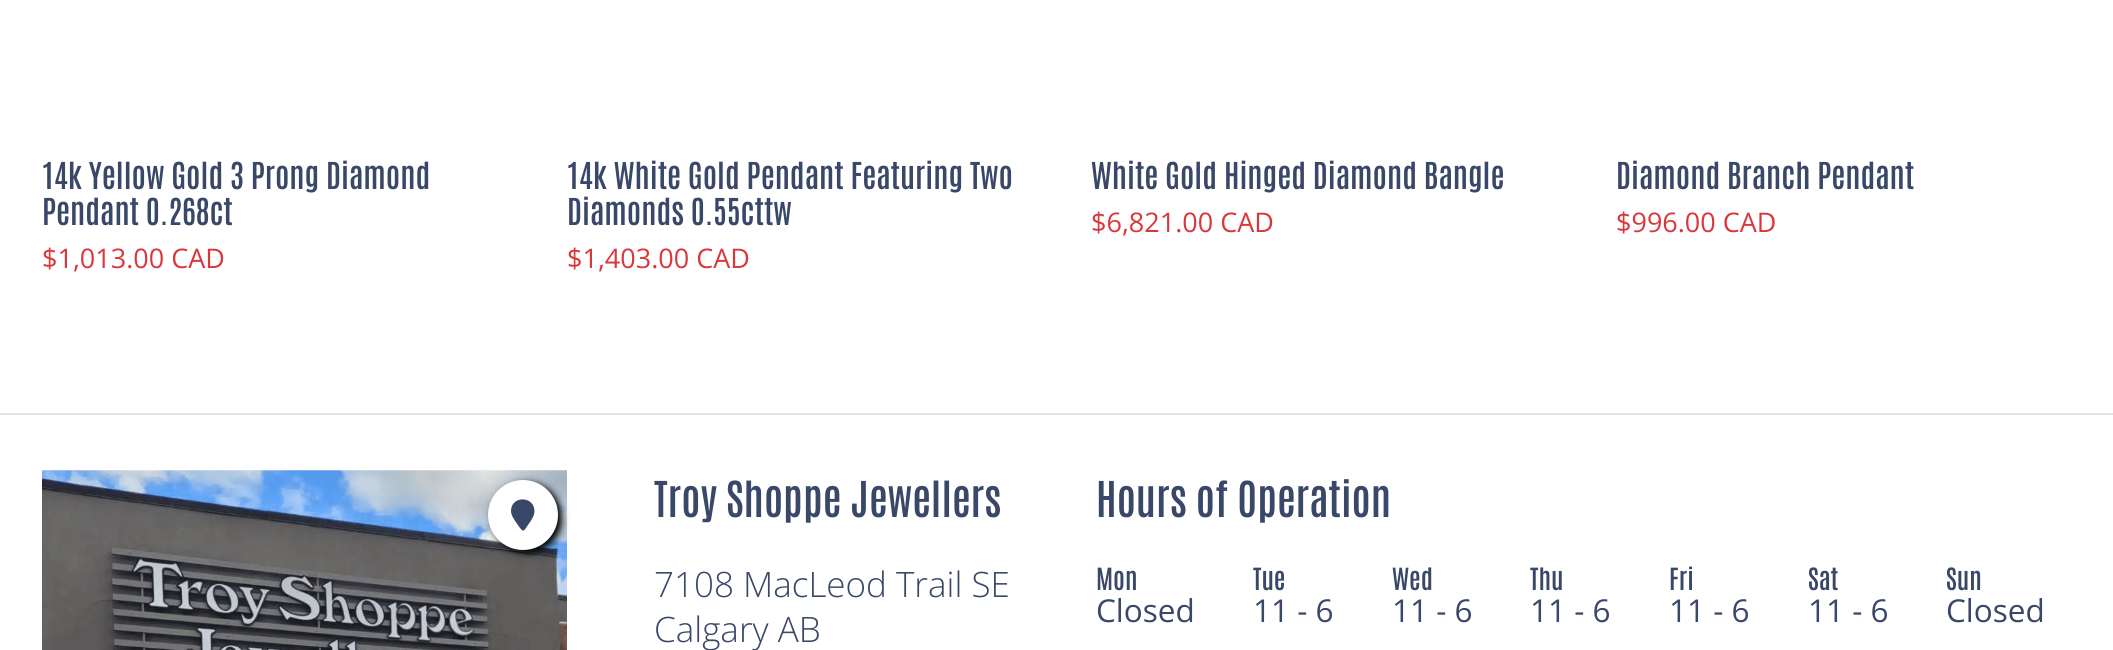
#include <cairo.h>
#include <math.h>
#include <stddef.h>


static void set_color(cairo_t *cr, unsigned color) {
    cairo_set_source_rgb(cr, (color >> 16) / 255.0, (color >> 8 & 255) / 255.0, (color & 255) / 255.0);
}

static void draw_text(cairo_t *cr, double x, double y, const char *s, const char *family, double size, int italic, int bold, unsigned color) {
    cairo_select_font_face(cr, family, italic ? CAIRO_FONT_SLANT_ITALIC : CAIRO_FONT_SLANT_NORMAL,
        bold ? CAIRO_FONT_WEIGHT_BOLD : CAIRO_FONT_WEIGHT_NORMAL);
    cairo_set_font_size(cr, size);
    set_color(cr, color);
    cairo_move_to(cr, x, y);
    cairo_show_text(cr, s);
}

static void fill_rect(cairo_t *cr, double x, double y, double w, double h, unsigned color) {
    set_color(cr, color);
    cairo_rectangle(cr, x, y, w, h);
    cairo_fill(cr);
}

static void rounded_rect(cairo_t *cr, double x, double y, double w, double h, double r) {
    cairo_new_sub_path(cr);
    cairo_arc(cr, x + w - r, y + h - r, r, 0, M_PI / 2);
    cairo_arc(cr, x + r, y + h - r, r, M_PI / 2, M_PI);
    cairo_arc(cr, x + r, y + r, r, M_PI, 1.5 * M_PI);
    cairo_arc(cr, x + w - r, y + r, r, 1.5 * M_PI, 2 * M_PI);
    cairo_close_path(cr);
}

static void draw_shadow(cairo_t *cr, double x, double y, double w, double h, double r, double blur, double alpha) {
    cairo_push_group_with_content(cr, CAIRO_CONTENT_ALPHA);
    cairo_set_operator(cr, CAIRO_OPERATOR_SOURCE);
    for (int i = 15; i >= -15 && fmin(w, h) + blur * i / 3 > 0; i -= 2) {
        double e = blur * i / 6;
        cairo_set_source_rgba(cr, 0, 0, 0, alpha * erfc((i - 1) / 8.5) / 2);
        rounded_rect(cr, x - e, y - e, w + 2 * e, h + 2 * e, fmax(0, fmin(r + e + blur * .6, fmin(w, h) / 2 + e)));
        cairo_fill(cr);
    }
    cairo_pattern_t *soft = cairo_pop_group(cr);
    cairo_mask(cr, soft);
    cairo_pattern_destroy(soft);
}

static void draw_image(cairo_t *cr, const char *path, double x, double y, double w, double h) {
    cairo_surface_t *image = cairo_image_surface_create_from_png(path);
    cairo_save(cr);
    cairo_set_source_surface(cr, image, x, y);
    cairo_rectangle(cr, x, y, w, h);
    cairo_fill(cr);
    cairo_restore(cr);
    cairo_surface_destroy(image);
}

int main(void) {
    cairo_surface_t *surface = cairo_image_surface_create(CAIRO_FORMAT_RGB24, 2113, 650);
    cairo_t *cr = cairo_create(surface);
    cairo_font_options_t *options = cairo_font_options_create();
    cairo_font_options_set_hint_metrics(options, CAIRO_HINT_METRICS_OFF);
    cairo_font_options_set_hint_style(options, CAIRO_HINT_STYLE_NONE);
    cairo_set_font_options(cr, options);
    cairo_set_miter_limit(cr, 4);
    set_color(cr, 0xFFFFFF);
    cairo_paint(cr);
    draw_text(cr, 42, 189, "14k Yellow Gold 3 Prong Diamond", "Antonio SemiBold", 31.5, 0, 0, 0x394769);
    draw_text(cr, 42, 225, "Pendant 0.268ct", "Antonio SemiBold", 31.5, 0, 0, 0x394769);
    draw_text(cr, 42, 268, "$1,013.00 CAD", "Open Sans", 27, 0, 0, 0xD9373C);
    draw_text(cr, 567, 189, "14k White Gold Pendant Featuring Two", "Antonio SemiBold", 31.5, 0, 0, 0x394769);
    draw_text(cr, 567, 225, "Diamonds 0.55cttw", "Antonio SemiBold", 31.5, 0, 0, 0x394769);
    draw_text(cr, 567, 268, "$1,403.00 CAD", "Open Sans", 27, 0, 0, 0xD9373C);
    draw_text(cr, 1091, 189, "White Gold Hinged Diamond Bangle", "Antonio SemiBold", 31.5, 0, 0, 0x394769);
    draw_text(cr, 1091, 232, "$6,821.00 CAD", "Open Sans", 27, 0, 0, 0xD9373C);
    draw_text(cr, 1616, 189, "Diamond Branch Pendant", "Antonio SemiBold", 31.5, 0, 0, 0x394769);
    draw_text(cr, 1616, 232, "$996.00 CAD", "Open Sans", 27, 0, 0, 0xD9373C);
    fill_rect(cr, 0, 413, 2113, 2, 0xE1E3E9);
    draw_image(cr, "assets/img1.png", 42, 470, 525, 180);
    set_color(cr, 0x000000);
    draw_shadow(cr, 492, 483, 70, 70, 35, 3.5, 1);
    set_color(cr, 0xFFFFFF);
    cairo_arc(cr, 523, 515, 35, 0, 2 * M_PI);
    cairo_fill(cr);
    set_color(cr, 0x394769);
    cairo_new_path(cr);
    cairo_move_to(cr, 534.5, 511);
    cairo_curve_to(cr, 534.5, 515.5, 531.5, 520, 529, 523.5);
    cairo_curve_to(cr, 523, 532.5, 523.5, 533, 517.5, 524.5);
    cairo_curve_to(cr, 515, 521, 511, 515.5, 511, 511);
    cairo_curve_to(cr, 511, 495.5, 534, 495.5, 534.5, 511);
    cairo_close_path(cr);
    cairo_fill(cr);
    draw_text(cr, 654, 517, "Troy Shoppe Jewellers", "Antonio SemiBold", 42, 0, 0, 0x394769);
    draw_text(cr, 654, 597, "7108 MacLeod Trail SE", "Open Sans Light", 35, 0, 0, 0x394769);
    draw_text(cr, 654, 642, "Calgary AB", "Open Sans Light", 35, 0, 0, 0x394769);
    draw_text(cr, 1096, 517, "Hours of Operation", "Antonio SemiBold", 42, 0, 0, 0x394769);
    draw_text(cr, 1096, 590, "Mon", "Antonio SemiBold", 26, 0, 0, 0x394769);
    draw_text(cr, 1096, 622, "Closed", "Open Sans", 31.5, 0, 0, 0x394769);
    draw_text(cr, 1253, 590, "Tue", "Antonio SemiBold", 26, 0, 0, 0x394769);
    draw_text(cr, 1253, 622, "11 - 6", "Open Sans", 31.5, 0, 0, 0x394769);
    draw_text(cr, 1392, 590, "Wed", "Antonio SemiBold", 26, 0, 0, 0x394769);
    draw_text(cr, 1392, 622, "11 - 6", "Open Sans", 31.5, 0, 0, 0x394769);
    draw_text(cr, 1530, 590, "Thu", "Antonio SemiBold", 26, 0, 0, 0x394769);
    draw_text(cr, 1530, 622, "11 - 6", "Open Sans", 31.5, 0, 0, 0x394769);
    draw_text(cr, 1669, 590, "Fri", "Antonio SemiBold", 26, 0, 0, 0x394769);
    draw_text(cr, 1669, 622, "11 - 6", "Open Sans", 31.5, 0, 0, 0x394769);
    draw_text(cr, 1808, 590, "Sat", "Antonio SemiBold", 26, 0, 0, 0x394769);
    draw_text(cr, 1808, 622, "11 - 6", "Open Sans", 31.5, 0, 0, 0x394769);
    draw_text(cr, 1946, 590, "Sun", "Antonio SemiBold", 26, 0, 0, 0x394769);
    draw_text(cr, 1946, 622, "Closed", "Open Sans", 31.5, 0, 0, 0x394769);
    cairo_surface_write_to_png(surface, "output.png");
    cairo_font_options_destroy(options);
    cairo_destroy(cr);
    cairo_surface_destroy(surface);
    return 0;
}
